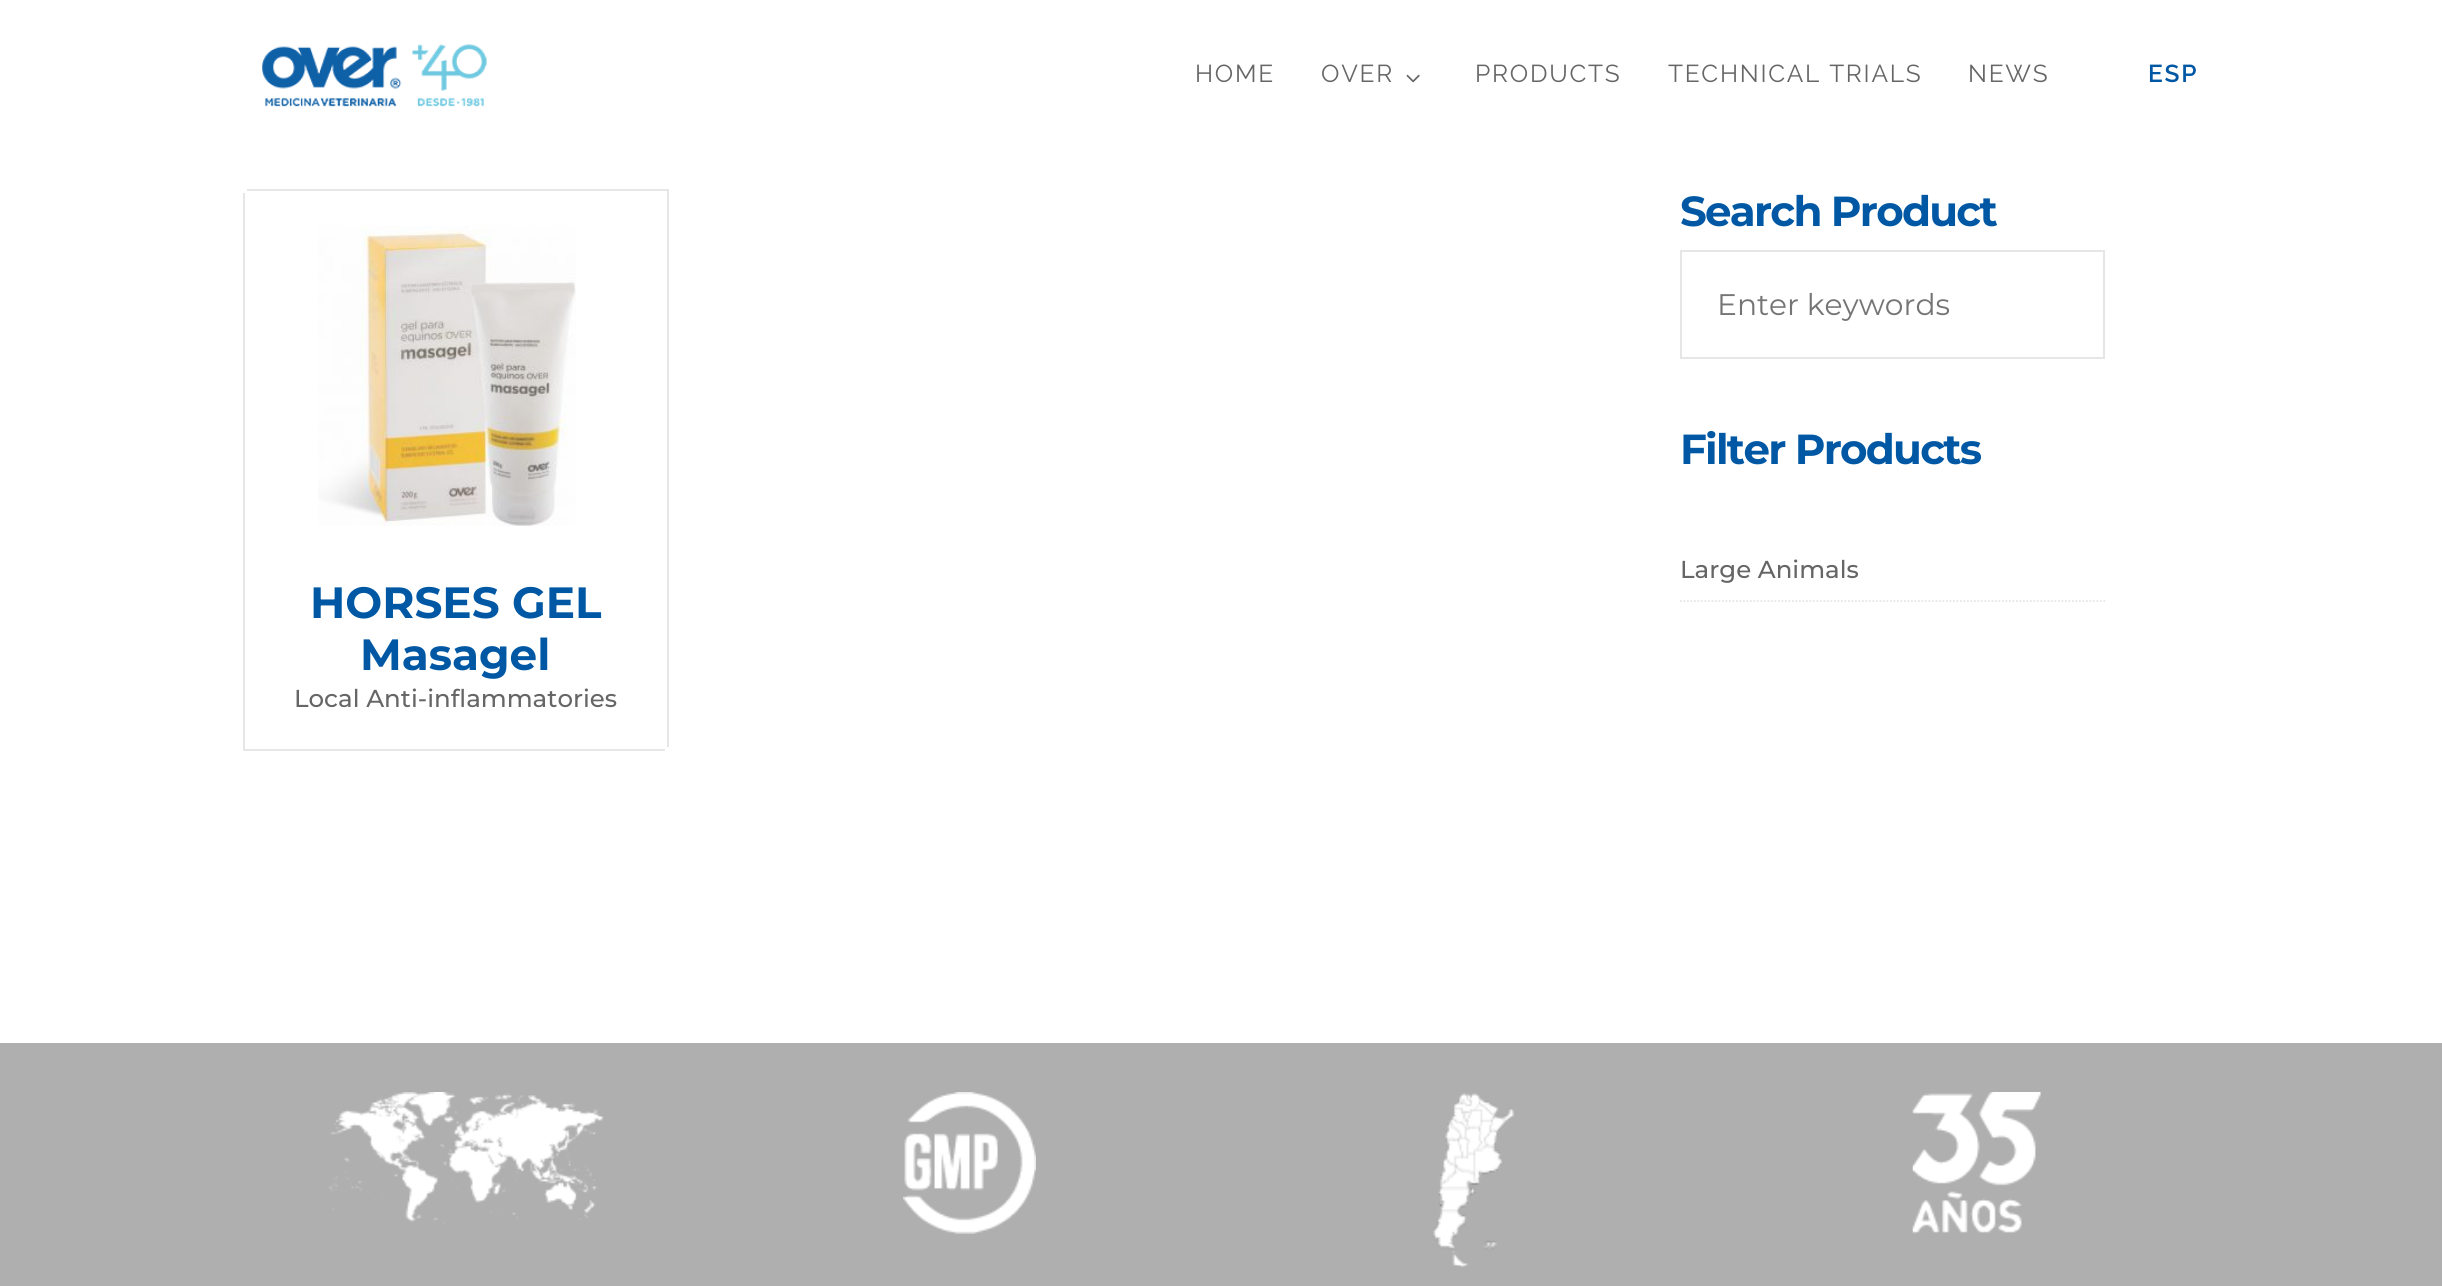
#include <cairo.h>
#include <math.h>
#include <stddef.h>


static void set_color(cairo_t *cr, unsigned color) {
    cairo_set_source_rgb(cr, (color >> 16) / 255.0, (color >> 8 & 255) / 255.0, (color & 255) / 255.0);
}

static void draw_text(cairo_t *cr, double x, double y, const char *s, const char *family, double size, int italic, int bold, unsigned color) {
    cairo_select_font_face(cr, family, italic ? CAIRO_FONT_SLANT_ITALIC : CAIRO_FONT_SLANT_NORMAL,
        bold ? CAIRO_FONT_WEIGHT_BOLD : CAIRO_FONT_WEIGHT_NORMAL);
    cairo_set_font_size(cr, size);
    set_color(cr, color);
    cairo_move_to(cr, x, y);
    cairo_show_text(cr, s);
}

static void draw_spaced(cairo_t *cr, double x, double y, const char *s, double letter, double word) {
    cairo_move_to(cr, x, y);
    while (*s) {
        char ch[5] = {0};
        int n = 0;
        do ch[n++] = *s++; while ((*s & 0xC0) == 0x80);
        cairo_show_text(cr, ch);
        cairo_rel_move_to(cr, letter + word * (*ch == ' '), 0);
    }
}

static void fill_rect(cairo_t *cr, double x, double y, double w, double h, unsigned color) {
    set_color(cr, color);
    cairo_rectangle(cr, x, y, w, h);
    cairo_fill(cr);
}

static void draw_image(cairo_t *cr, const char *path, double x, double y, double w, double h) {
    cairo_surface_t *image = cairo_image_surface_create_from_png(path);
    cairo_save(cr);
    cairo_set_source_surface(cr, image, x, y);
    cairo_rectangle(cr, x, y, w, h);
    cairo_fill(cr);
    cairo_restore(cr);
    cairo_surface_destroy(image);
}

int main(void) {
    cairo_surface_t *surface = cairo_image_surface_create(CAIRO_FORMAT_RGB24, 2442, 1286);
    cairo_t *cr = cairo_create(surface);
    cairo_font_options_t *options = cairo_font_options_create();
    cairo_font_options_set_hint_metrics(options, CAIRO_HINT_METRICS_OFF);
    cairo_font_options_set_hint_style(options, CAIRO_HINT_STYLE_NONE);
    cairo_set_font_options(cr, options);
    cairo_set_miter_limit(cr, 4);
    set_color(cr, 0xFFFFFF);
    cairo_paint(cr);
    draw_image(cr, "assets/img1.png", 262, 44, 226, 63);
    cairo_select_font_face(cr, "Raleway Thin", CAIRO_FONT_SLANT_NORMAL, CAIRO_FONT_WEIGHT_NORMAL);
    cairo_set_font_size(cr, 24.5);
    set_color(cr, 0x666666);
    draw_spaced(cr, 1195, 82, "HOME", 1.75, 0);
    draw_spaced(cr, 1321, 82, "OVER", 1.75, 0);
    draw_image(cr, "assets/img2.png", 1406, 74, 14, 9);
    draw_spaced(cr, 1475, 82, "PRODUCTS", 1.75, 0);
    draw_spaced(cr, 1668, 82, "TECHNICAL TRIALS", 1.75, 0);
    draw_spaced(cr, 1968, 82, "NEWS", 1.75, 0);
    cairo_select_font_face(cr, "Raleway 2 Thin", CAIRO_FONT_SLANT_NORMAL, CAIRO_FONT_WEIGHT_NORMAL);
    set_color(cr, 0x0058A4);
    draw_spaced(cr, 2148, 82, "ESP", 1.75, 0);
    cairo_select_font_face(cr, "Montserrat Thin", CAIRO_FONT_SLANT_NORMAL, CAIRO_FONT_WEIGHT_NORMAL);
    cairo_set_font_size(cr, 42);
    draw_spaced(cr, 1680, 226, "Search Product", -1.75, 0);
    cairo_rectangle(cr, 1681, 251, 423, 107);
    set_color(cr, 0xE6E6E6);
    cairo_stroke(cr);
    draw_text(cr, 1717, 315, "Enter keywords", "Montserrat", 29.75, 0, 0, 0x757575);
    cairo_select_font_face(cr, "Montserrat Thin", CAIRO_FONT_SLANT_NORMAL, CAIRO_FONT_WEIGHT_NORMAL);
    cairo_set_font_size(cr, 42);
    set_color(cr, 0x0058A4);
    draw_spaced(cr, 1680, 464, "Filter Products", -1.75, 0);
    cairo_new_path(cr);
    cairo_move_to(cr, 1680, 601);
    cairo_line_to(cr, 2105, 601);
    set_color(cr, 0xE6E6E6);
    cairo_set_line_width(cr, 1.8);
    cairo_set_dash(cr, (double[]){1.75, 1.75}, 2, 0);
    cairo_stroke(cr);
    draw_text(cr, 1680, 578, "Large Animals", "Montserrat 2 Thin", 24.5, 0, 0, 0x666666);
    set_color(cr, 0xE6E6E6);
    cairo_new_path(cr);
    cairo_move_to(cr, 247, 189);
    cairo_line_to(cr, 247, 191);
    cairo_line_to(cr, 667, 191);
    cairo_line_to(cr, 667, 747);
    cairo_line_to(cr, 669, 747);
    cairo_line_to(cr, 669, 189);
    cairo_close_path(cr);
    cairo_fill(cr);
    cairo_new_path(cr);
    cairo_move_to(cr, 243, 193);
    cairo_line_to(cr, 243, 751);
    cairo_line_to(cr, 665, 751);
    cairo_line_to(cr, 665, 749);
    cairo_line_to(cr, 245, 749);
    cairo_line_to(cr, 245, 193);
    cairo_close_path(cr);
    cairo_fill(cr);
    draw_image(cr, "assets/img3.png", 318, 226, 258, 300);
    draw_text(cr, 310, 618, "HORSES GEL", "Montserrat Thin", 43.75, 0, 0, 0x0058A4);
    draw_text(cr, 360, 670, "Masagel", "Montserrat Thin", 43.75, 0, 0, 0x0058A4);
    draw_text(cr, 294, 707, "Local Anti-inflammatories", "Montserrat 2 Thin", 24.5, 0, 0, 0x666666);
    fill_rect(cr, 0, 1043, 2442, 243, 0xAFAFAF);
    draw_image(cr, "assets/img4.png", 329, 1092, 275, 133);
    draw_image(cr, "assets/img5.png", 903, 1092, 133, 142);
    draw_image(cr, "assets/img6.png", 1433, 1093, 81, 174);
    draw_image(cr, "assets/img7.png", 1912, 1092, 129, 142);
    cairo_surface_write_to_png(surface, "output.png");
    cairo_font_options_destroy(options);
    cairo_destroy(cr);
    cairo_surface_destroy(surface);
    return 0;
}
